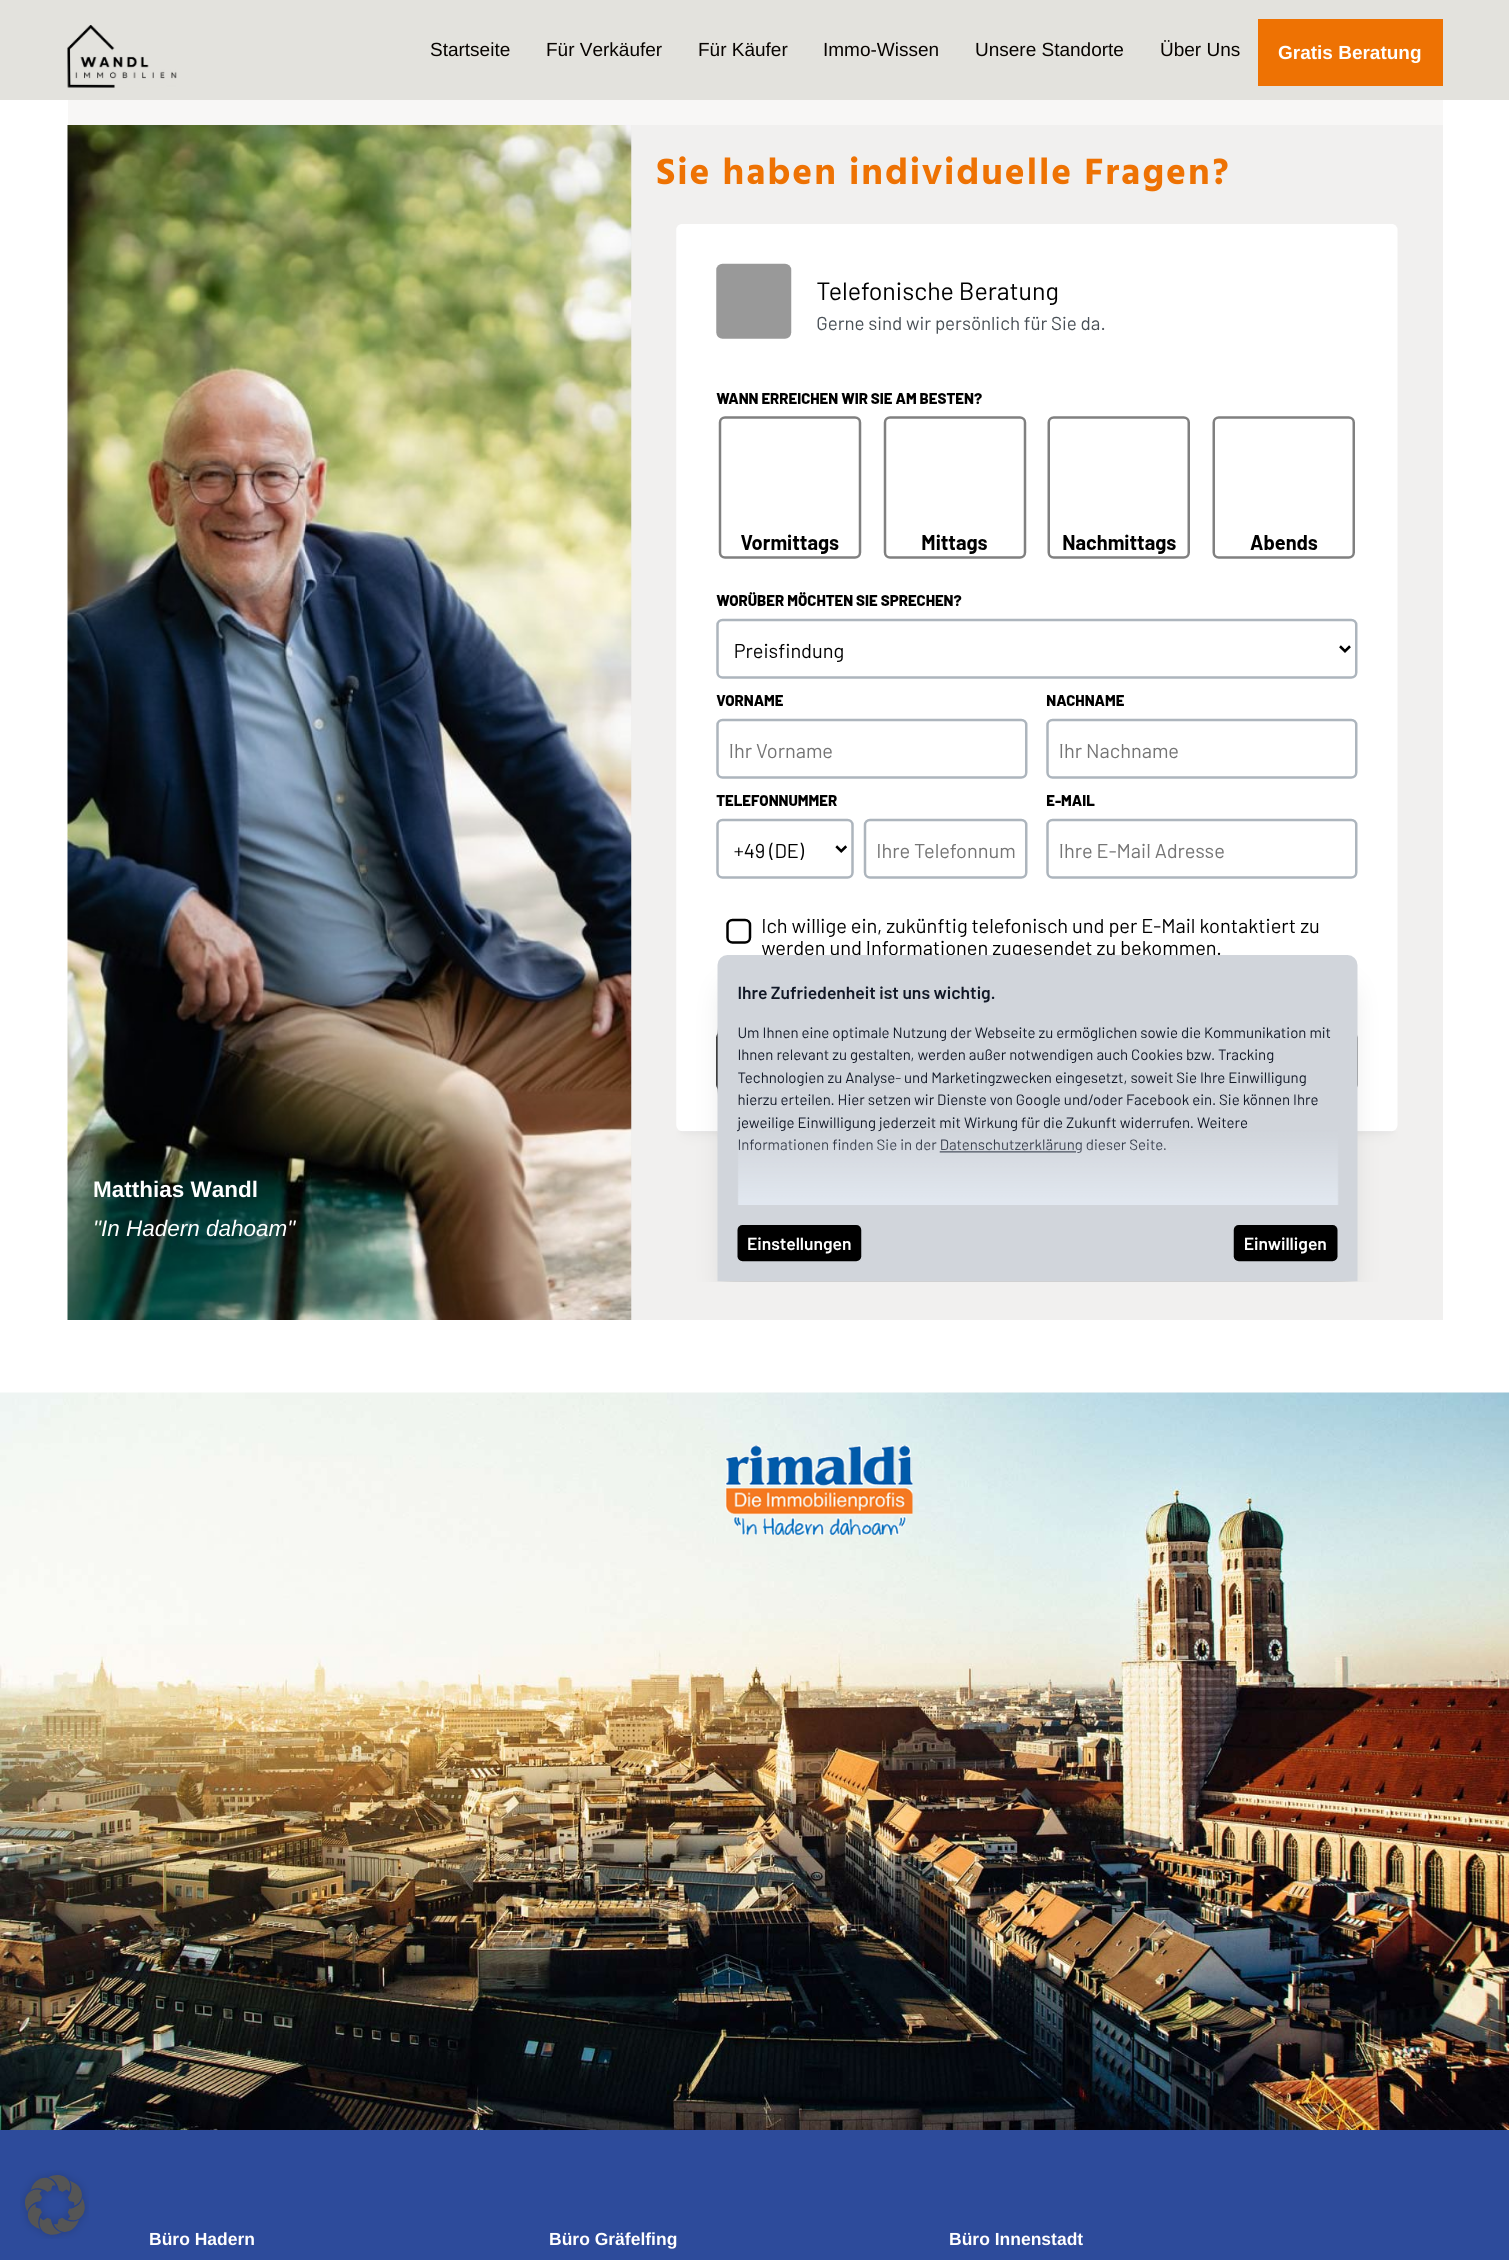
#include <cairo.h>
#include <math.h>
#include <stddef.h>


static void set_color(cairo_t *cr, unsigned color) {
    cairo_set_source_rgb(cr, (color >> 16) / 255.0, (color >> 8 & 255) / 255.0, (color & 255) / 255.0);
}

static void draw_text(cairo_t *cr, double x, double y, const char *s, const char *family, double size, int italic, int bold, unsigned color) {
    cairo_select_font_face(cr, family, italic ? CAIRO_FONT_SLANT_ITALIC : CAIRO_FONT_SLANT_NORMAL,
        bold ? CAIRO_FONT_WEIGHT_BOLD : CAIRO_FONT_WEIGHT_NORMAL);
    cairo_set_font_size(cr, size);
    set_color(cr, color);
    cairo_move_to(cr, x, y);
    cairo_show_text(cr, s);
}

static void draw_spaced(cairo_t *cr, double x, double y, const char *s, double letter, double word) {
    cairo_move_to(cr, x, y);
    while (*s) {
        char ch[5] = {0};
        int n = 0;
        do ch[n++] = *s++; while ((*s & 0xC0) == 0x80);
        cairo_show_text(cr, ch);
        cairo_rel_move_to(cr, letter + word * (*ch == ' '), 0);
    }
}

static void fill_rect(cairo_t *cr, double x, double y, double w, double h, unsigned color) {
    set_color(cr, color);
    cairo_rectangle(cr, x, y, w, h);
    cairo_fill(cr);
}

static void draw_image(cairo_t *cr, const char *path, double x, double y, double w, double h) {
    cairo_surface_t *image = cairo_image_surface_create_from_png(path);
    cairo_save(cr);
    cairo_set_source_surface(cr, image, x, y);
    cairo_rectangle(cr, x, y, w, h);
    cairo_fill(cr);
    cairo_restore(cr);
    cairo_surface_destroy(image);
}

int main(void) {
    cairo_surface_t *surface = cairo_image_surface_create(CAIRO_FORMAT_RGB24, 1509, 2260);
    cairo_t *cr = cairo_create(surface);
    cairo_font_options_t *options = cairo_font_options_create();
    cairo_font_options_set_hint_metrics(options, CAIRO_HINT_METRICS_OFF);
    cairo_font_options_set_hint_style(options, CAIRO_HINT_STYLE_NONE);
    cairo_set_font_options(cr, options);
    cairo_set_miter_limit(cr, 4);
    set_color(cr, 0xFFFFFF);
    cairo_paint(cr);
    fill_rect(cr, 0, 0, 1509, 100, 0xE3E2DD);
    draw_image(cr, "assets/img1.png", 67, 25, 110, 63);
    draw_text(cr, 430, 56, "Startseite", "Liberation Sans", 19, 0, 0, 0x070300);
    draw_text(cr, 546, 56, "Für Verkäufer", "Liberation Sans", 19, 0, 0, 0x070300);
    draw_text(cr, 698, 56, "Für Käufer", "Liberation Sans", 19, 0, 0, 0x070300);
    draw_text(cr, 823, 56, "Immo-Wissen", "Liberation Sans", 19, 0, 0, 0x070300);
    draw_text(cr, 975, 56, "Unsere Standorte", "Liberation Sans", 19, 0, 0, 0x070300);
    draw_text(cr, 1160, 56, "Über Uns", "Liberation Sans", 19, 0, 0, 0x070300);
    fill_rect(cr, 1258, 19, 185, 67, 0xEE7203);
    draw_text(cr, 1278, 59, "Gratis Beratung", "Liberation Sans", 19, 0, 1, 0xFFFFFF);
    fill_rect(cr, 68, 100, 1375, 1220, 0xF8F7F6);
    draw_image(cr, "assets/img3.png", 67, 125, 565, 1195);
    cairo_set_source_rgba(cr, 0, 0, 0, 0.03);
    cairo_rectangle(cr, 631, 125, 812, 1195);
    cairo_fill(cr);
    cairo_select_font_face(cr, "Hind", CAIRO_FONT_SLANT_NORMAL, CAIRO_FONT_WEIGHT_BOLD);
    cairo_set_font_size(cr, 37.5);
    set_color(cr, 0xEE7203);
    draw_spaced(cr, 656, 184, "Sie haben individuelle Fragen?", 1.9, 0);
    draw_image(cr, "assets/img2.png", 676, 224, 722, 1058);
    draw_text(cr, 93, 1197, "Matthias Wandl", "Liberation Sans", 22.5, 0, 1, 0xFFFFFF);
    draw_text(cr, 93, 1236, "\"In Hadern dahoam\"", "Liberation Sans", 22.5, 1, 0, 0xFFFFFF);
    fill_rect(cr, 0, 2130, 1509, 130, 0x2D4B9B);
    draw_image(cr, "assets/img4.png", 20, 2170, 69, 69);
    draw_image(cr, "assets/img5.png", 0, 1392, 1509, 738);
    draw_image(cr, "assets/img6.png", 725, 1445, 188, 90);
    draw_text(cr, 149, 2245, "Büro Hadern", "Liberation Sans", 17.5, 0, 1, 0xFFFFFF);
    draw_text(cr, 549, 2245, "Büro Gräfelfing", "Liberation Sans", 17.5, 0, 1, 0xFFFFFF);
    draw_text(cr, 949, 2245, "Büro Innenstadt", "Liberation Sans", 17.5, 0, 1, 0xFFFFFF);
    cairo_surface_write_to_png(surface, "output.png");
    cairo_font_options_destroy(options);
    cairo_destroy(cr);
    cairo_surface_destroy(surface);
    return 0;
}
